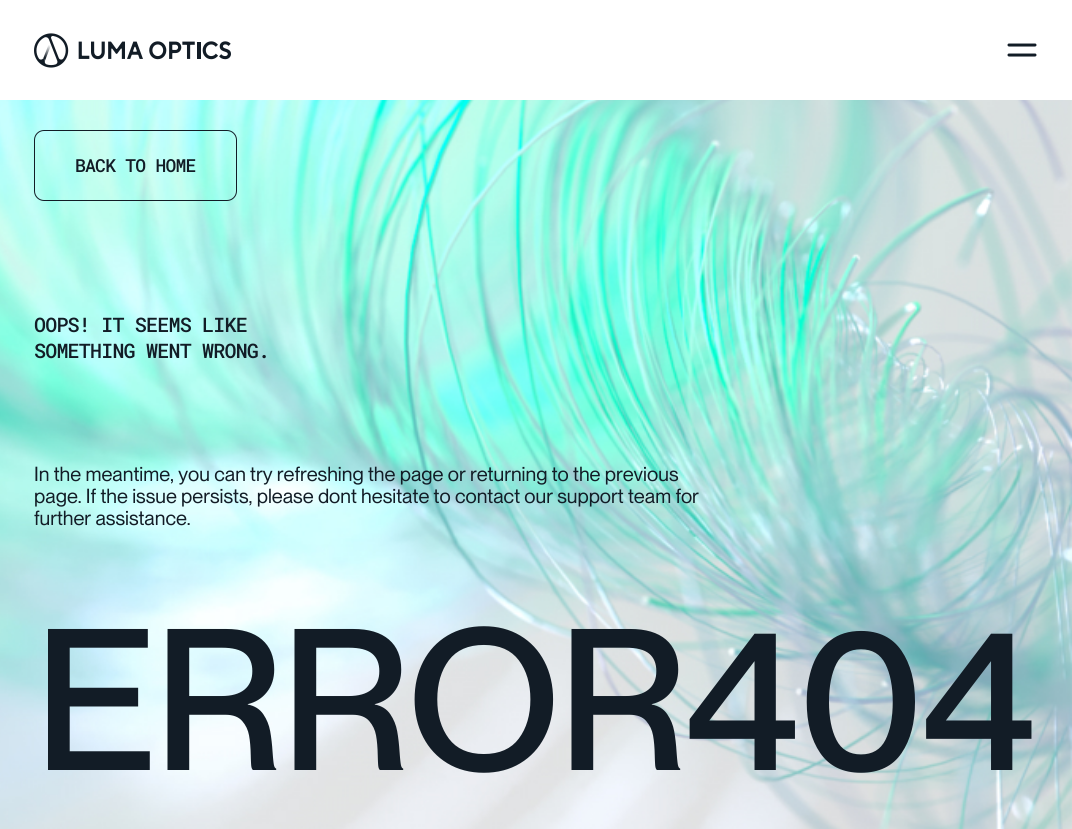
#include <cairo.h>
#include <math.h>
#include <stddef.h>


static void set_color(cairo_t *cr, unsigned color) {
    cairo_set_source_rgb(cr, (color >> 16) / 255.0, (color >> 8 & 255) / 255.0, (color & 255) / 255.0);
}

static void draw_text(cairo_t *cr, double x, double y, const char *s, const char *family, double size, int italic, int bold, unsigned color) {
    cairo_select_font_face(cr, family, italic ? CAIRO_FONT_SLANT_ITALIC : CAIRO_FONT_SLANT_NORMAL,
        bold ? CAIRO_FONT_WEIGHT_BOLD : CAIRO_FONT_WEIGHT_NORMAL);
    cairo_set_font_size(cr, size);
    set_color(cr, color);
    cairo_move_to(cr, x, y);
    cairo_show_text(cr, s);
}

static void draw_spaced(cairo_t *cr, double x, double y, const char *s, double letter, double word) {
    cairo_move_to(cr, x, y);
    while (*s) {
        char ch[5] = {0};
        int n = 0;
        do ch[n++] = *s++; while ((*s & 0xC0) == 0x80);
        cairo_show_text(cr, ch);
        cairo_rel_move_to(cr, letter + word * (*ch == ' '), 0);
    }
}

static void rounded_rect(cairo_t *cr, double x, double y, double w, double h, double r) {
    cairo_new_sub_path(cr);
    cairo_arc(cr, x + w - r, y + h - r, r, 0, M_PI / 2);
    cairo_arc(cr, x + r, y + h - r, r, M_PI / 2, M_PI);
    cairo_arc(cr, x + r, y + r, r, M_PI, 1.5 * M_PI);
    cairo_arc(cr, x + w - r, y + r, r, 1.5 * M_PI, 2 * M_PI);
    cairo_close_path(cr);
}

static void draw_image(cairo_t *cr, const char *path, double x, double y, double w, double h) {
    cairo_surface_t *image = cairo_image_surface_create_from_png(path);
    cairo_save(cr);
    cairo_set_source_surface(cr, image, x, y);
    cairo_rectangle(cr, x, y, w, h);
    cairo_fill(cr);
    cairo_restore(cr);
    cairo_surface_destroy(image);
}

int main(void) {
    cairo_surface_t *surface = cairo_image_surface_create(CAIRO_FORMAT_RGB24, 1072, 829);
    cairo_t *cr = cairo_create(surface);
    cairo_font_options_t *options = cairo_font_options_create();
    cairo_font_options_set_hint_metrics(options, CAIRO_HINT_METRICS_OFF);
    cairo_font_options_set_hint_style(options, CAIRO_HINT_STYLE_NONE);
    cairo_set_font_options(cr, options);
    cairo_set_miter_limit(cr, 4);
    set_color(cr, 0xFFFFFF);
    cairo_paint(cr);
    draw_image(cr, "assets/img1.png", 34, 33, 197, 35);
    cairo_new_path(cr);
    cairo_move_to(cr, 1009, 45);
    cairo_line_to(cr, 1035, 45);
    cairo_move_to(cr, 1009, 55);
    cairo_line_to(cr, 1035, 55);
    set_color(cr, 0x121C26);
    cairo_set_line_width(cr, 3);
    cairo_set_line_cap(cr, CAIRO_LINE_CAP_ROUND);
    cairo_stroke(cr);
    draw_image(cr, "assets/img2.png", 0, 100, 1072, 729);
    rounded_rect(cr, 34.5, 130.5, 202, 70, 9.5);
    cairo_set_line_width(cr, 1);
    cairo_set_line_cap(cr, CAIRO_LINE_CAP_BUTT);
    cairo_stroke(cr);
    cairo_select_font_face(cr, "Roboto Mono Medium", CAIRO_FONT_SLANT_NORMAL, CAIRO_FONT_WEIGHT_NORMAL);
    cairo_set_font_size(cr, 18);
    draw_spaced(cr, 75, 172, "BACK TO HOME", -0.75, 0);
    cairo_set_font_size(cr, 20);
    draw_spaced(cr, 34, 332, "OOPS! IT SEEMS LIKE", -0.8, 0);
    draw_spaced(cr, 34, 358, "SOMETHING WENT WRONG.", -0.8, 0);
    draw_text(cr, 34, 481, "In the meantime, you can try refreshing the page or returning to the previous", "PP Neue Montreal", 20, 0, 0, 0x121C26);
    draw_text(cr, 34, 503, "page. If the issue persists, please dont hesitate to contact our support team for", "PP Neue Montreal", 20, 0, 0, 0x121C26);
    draw_text(cr, 34, 525, "further assistance.", "PP Neue Montreal", 20, 0, 0, 0x121C26);
    cairo_select_font_face(cr, "PP Neue Montreal Medium", CAIRO_FONT_SLANT_NORMAL, CAIRO_FONT_WEIGHT_NORMAL);
    cairo_set_font_size(cr, 197.25);
    draw_spaced(cr, 34, 770, "ERROR404", -2.5, 0);
    cairo_surface_write_to_png(surface, "output.png");
    cairo_font_options_destroy(options);
    cairo_destroy(cr);
    cairo_surface_destroy(surface);
    return 0;
}
